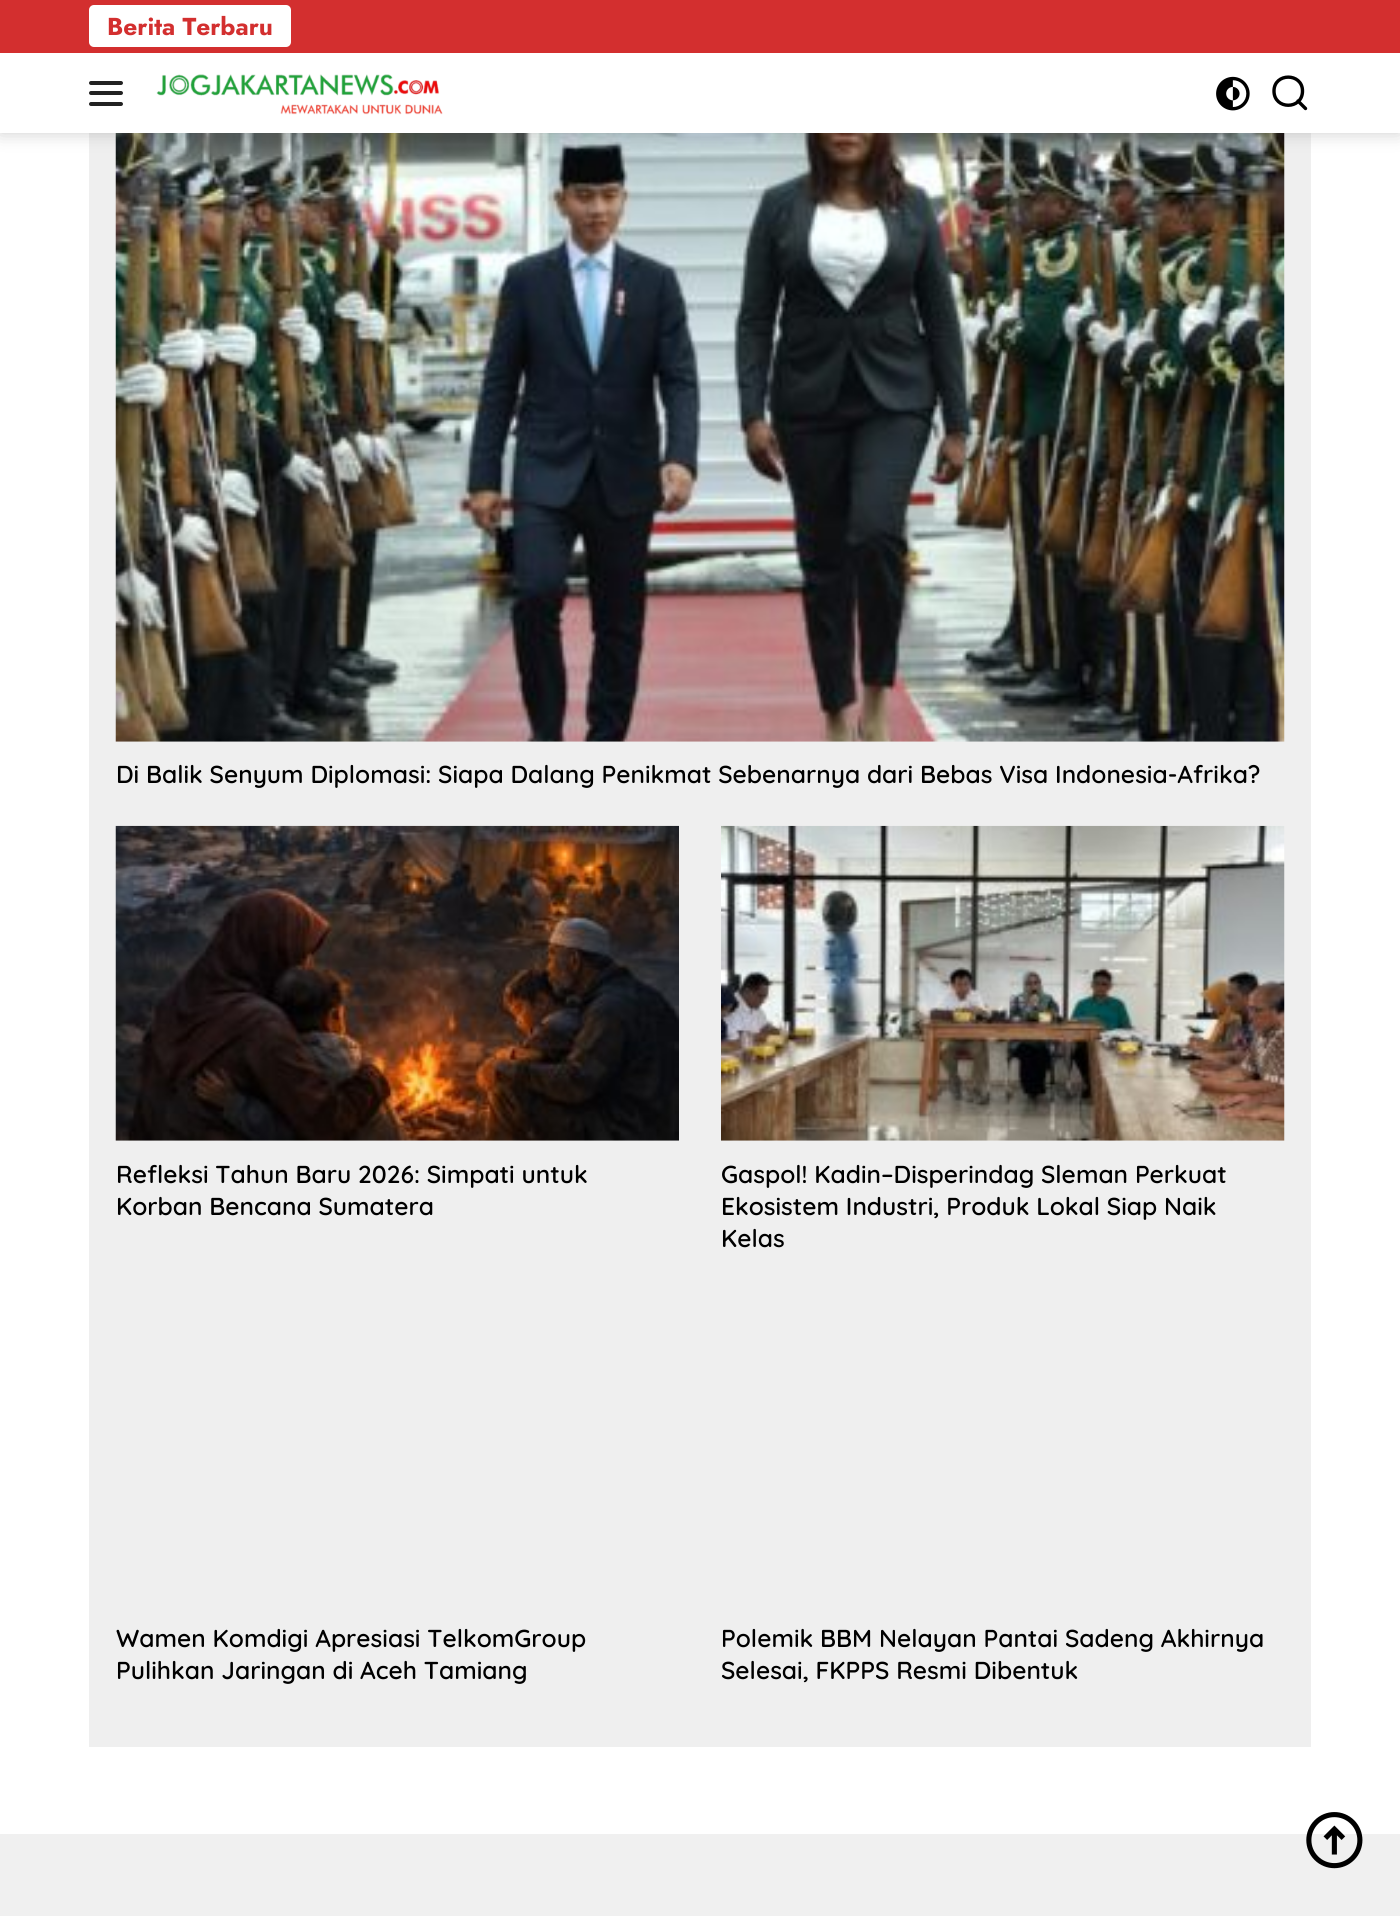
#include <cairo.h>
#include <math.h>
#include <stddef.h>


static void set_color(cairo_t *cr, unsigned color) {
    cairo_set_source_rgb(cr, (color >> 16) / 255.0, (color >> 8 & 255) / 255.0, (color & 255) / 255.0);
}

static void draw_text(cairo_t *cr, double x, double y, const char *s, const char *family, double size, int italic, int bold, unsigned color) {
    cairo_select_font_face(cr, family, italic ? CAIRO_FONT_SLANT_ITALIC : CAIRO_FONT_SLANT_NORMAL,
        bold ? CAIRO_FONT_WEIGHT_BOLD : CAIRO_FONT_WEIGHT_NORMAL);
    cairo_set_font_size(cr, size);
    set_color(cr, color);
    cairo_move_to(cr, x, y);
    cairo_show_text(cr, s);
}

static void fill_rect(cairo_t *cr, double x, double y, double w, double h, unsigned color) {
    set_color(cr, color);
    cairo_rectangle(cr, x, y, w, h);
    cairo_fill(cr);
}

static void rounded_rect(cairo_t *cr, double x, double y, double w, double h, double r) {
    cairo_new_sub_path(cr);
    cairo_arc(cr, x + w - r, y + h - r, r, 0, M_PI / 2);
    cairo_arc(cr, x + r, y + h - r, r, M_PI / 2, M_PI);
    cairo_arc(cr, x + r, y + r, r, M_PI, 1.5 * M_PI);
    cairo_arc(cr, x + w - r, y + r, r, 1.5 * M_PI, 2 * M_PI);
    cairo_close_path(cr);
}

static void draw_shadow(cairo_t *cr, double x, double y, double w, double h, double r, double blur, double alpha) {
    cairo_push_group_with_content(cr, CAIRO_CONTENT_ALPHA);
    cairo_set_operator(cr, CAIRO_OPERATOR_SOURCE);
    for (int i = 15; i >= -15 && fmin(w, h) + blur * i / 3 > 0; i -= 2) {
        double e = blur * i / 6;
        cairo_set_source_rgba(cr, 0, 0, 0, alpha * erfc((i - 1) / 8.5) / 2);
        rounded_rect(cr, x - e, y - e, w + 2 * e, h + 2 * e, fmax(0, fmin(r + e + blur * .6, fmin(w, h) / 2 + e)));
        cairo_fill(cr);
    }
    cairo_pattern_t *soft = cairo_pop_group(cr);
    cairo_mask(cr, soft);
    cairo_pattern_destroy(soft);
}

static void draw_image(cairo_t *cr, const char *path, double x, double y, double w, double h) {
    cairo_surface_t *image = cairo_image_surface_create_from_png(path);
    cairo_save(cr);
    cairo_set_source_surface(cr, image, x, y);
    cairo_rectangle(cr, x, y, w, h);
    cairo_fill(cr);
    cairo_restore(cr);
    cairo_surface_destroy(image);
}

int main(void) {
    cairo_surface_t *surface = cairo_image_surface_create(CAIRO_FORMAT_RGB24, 1400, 1916);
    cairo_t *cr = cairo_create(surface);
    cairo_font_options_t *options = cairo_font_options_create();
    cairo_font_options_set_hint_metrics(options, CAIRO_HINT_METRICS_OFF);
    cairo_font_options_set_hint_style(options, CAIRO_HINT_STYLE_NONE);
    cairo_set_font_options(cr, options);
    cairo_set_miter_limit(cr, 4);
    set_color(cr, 0xFFFFFF);
    cairo_paint(cr);
    fill_rect(cr, 89, 133, 1222, 1614, 0xEFEFEF);
    draw_image(cr, "assets/img3.png", 115, 133, 1170, 609);
    set_color(cr, 0x000000);
    draw_shadow(cr, 0, 0, 1400, 133, 0, 9, 0.2);
    fill_rect(cr, 0, 53, 1400, 80, 0xFFFFFF);
    fill_rect(cr, 0, 0, 1400, 53, 0xD32F2F);
    set_color(cr, 0xFFFFFF);
    rounded_rect(cr, 89, 5, 202, 42, 5);
    cairo_fill(cr);
    draw_text(cr, 107, 35, "Berita Terbaru", "Jost", 24.5, 0, 1, 0xD32F2F);
    set_color(cr, 0x222222);
    rounded_rect(cr, 89, 81, 34, 4, 2);
    cairo_fill(cr);
    rounded_rect(cr, 89, 91, 34, 4, 2);
    cairo_fill(cr);
    rounded_rect(cr, 89, 102, 34, 4, 2);
    cairo_fill(cr);
    draw_image(cr, "assets/img1.png", 156, 74, 287, 41);
    draw_image(cr, "assets/img2.png", 1216, 76, 34, 35);
    cairo_new_path(cr);
    cairo_move_to(cr, 1305.5, 108.5);
    cairo_line_to(cr, 1298, 101);
    cairo_move_to(cr, 1302.5, 91);
    cairo_curve_to(cr, 1302.5, 110, 1274, 110, 1274, 91);
    cairo_curve_to(cr, 1274, 72.5, 1302.5, 72.5, 1302.5, 91);
    cairo_close_path(cr);
    set_color(cr, 0x000000);
    cairo_set_line_width(cr, 3.4);
    cairo_set_line_cap(cr, CAIRO_LINE_CAP_ROUND);
    cairo_stroke(cr);
    draw_text(cr, 116, 783, "Di Balik Senyum Diplomasi: Siapa Dalang Penikmat Sebenarnya dari Bebas Visa Indonesia-Afrika?", "Quicksand SemiBold", 24.5, 0, 0, 0x000000);
    draw_image(cr, "assets/img4.png", 115, 825, 564, 316);
    draw_text(cr, 116, 1183, "Refleksi Tahun Baru 2026: Simpati untuk", "Quicksand SemiBold", 24.5, 0, 0, 0x000000);
    draw_text(cr, 116, 1215, "Korban Bencana Sumatera", "Quicksand SemiBold", 24.5, 0, 0, 0x000000);
    draw_image(cr, "assets/img5.png", 721, 825, 564, 316);
    draw_text(cr, 721, 1183, "Gaspol! Kadin–Disperindag Sleman Perkuat", "Quicksand SemiBold", 24.5, 0, 0, 0x000000);
    draw_text(cr, 721, 1215, "Ekosistem Industri, Produk Lokal Siap Naik", "Quicksand SemiBold", 24.5, 0, 0, 0x000000);
    draw_text(cr, 721, 1247, "Kelas", "Quicksand SemiBold", 24.5, 0, 0, 0x000000);
    draw_text(cr, 116, 1647, "Wamen Komdigi Apresiasi TelkomGroup", "Quicksand SemiBold", 24.5, 0, 0, 0x000000);
    draw_text(cr, 116, 1679, "Pulihkan Jaringan di Aceh Tamiang", "Quicksand SemiBold", 24.5, 0, 0, 0x000000);
    draw_text(cr, 721, 1647, "Polemik BBM Nelayan Pantai Sadeng Akhirnya", "Quicksand SemiBold", 24.5, 0, 0, 0x000000);
    draw_text(cr, 721, 1679, "Selesai, FKPPS Resmi Dibentuk", "Quicksand SemiBold", 24.5, 0, 0, 0x000000);
    fill_rect(cr, 0, 1834, 1400, 82, 0xF0F0F0);
    draw_image(cr, "assets/img6.png", 1306, 1812, 57, 57);
    cairo_surface_write_to_png(surface, "output.png");
    cairo_font_options_destroy(options);
    cairo_destroy(cr);
    cairo_surface_destroy(surface);
    return 0;
}
